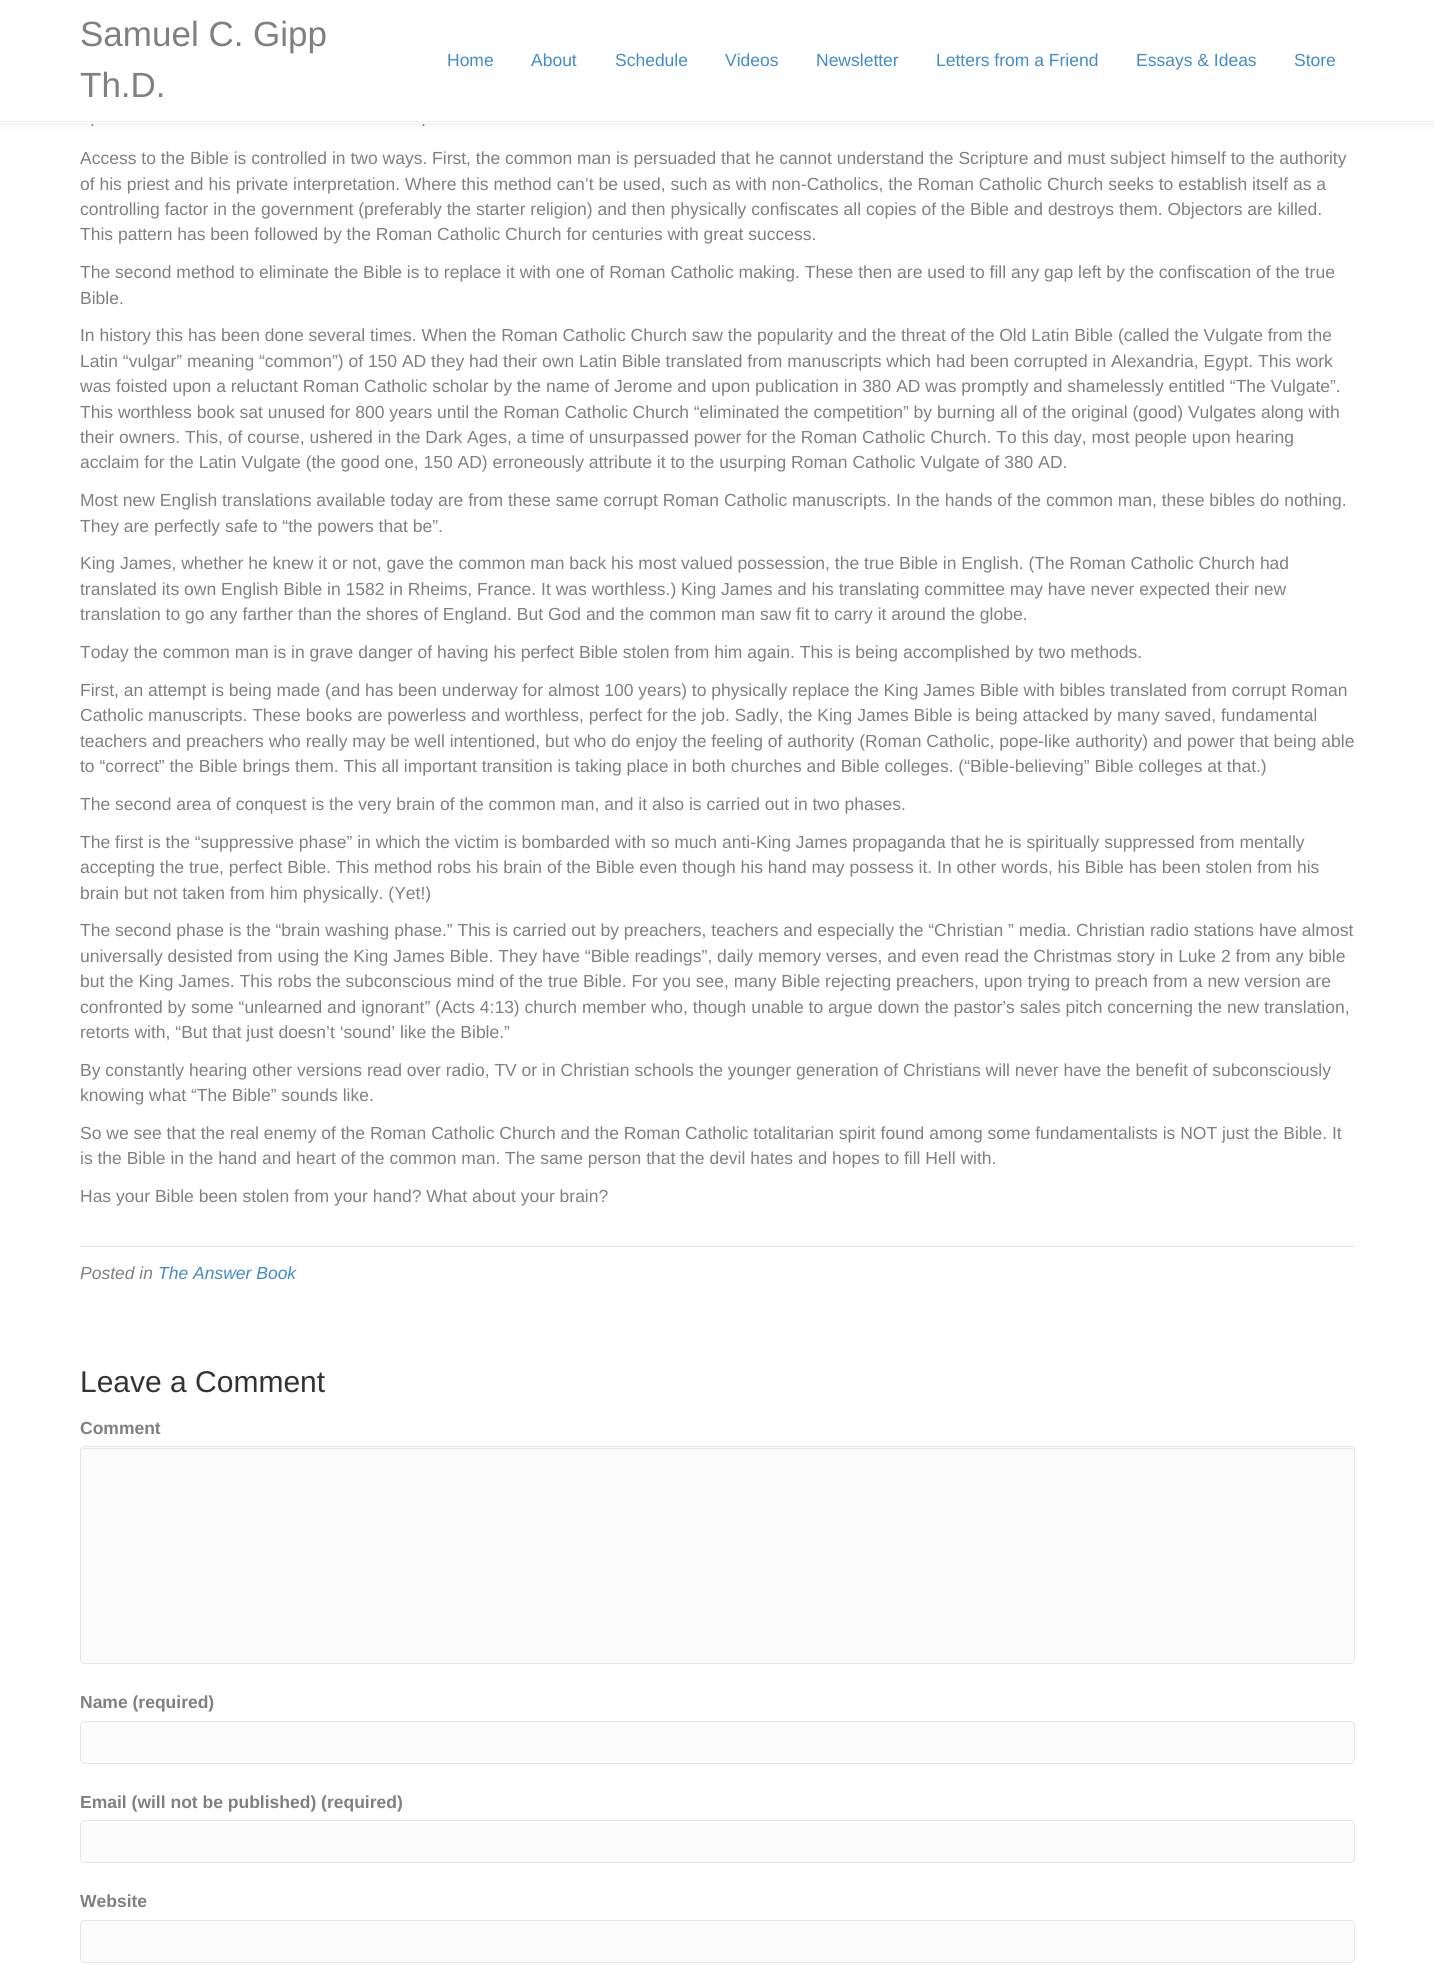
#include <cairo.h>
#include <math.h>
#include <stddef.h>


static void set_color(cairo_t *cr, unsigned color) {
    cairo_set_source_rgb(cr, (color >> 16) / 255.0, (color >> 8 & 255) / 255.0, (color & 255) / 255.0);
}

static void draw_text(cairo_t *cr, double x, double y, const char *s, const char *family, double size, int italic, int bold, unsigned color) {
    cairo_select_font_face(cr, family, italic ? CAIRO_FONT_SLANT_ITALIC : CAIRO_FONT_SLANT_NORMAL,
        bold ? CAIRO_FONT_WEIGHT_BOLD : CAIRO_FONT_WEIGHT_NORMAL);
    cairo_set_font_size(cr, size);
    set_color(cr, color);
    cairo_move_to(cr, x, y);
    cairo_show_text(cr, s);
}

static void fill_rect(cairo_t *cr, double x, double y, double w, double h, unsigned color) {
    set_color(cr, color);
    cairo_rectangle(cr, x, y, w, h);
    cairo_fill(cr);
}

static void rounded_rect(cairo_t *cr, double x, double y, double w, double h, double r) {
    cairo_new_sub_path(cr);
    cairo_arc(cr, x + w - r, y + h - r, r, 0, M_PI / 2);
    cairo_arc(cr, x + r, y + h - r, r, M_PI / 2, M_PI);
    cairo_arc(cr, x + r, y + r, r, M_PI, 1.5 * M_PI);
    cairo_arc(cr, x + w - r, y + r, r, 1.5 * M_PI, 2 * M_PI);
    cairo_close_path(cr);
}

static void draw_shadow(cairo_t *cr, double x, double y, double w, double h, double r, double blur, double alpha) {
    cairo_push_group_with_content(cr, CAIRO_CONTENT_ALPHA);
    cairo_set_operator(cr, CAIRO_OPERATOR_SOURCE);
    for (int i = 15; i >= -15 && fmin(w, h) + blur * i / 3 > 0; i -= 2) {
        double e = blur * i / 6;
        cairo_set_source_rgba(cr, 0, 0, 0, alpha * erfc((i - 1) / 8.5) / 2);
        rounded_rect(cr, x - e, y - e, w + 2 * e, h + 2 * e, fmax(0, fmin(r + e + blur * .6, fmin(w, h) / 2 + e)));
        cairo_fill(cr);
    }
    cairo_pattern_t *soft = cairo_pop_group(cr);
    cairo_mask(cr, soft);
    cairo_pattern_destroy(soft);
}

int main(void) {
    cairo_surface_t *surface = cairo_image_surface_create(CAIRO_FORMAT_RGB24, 1434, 1982);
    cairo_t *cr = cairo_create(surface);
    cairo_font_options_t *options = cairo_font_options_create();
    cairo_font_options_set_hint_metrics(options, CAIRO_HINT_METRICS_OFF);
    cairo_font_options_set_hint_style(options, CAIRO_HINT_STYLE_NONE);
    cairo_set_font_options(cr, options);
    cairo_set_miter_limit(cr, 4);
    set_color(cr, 0xFFFFFF);
    cairo_paint(cr);
    set_color(cr, 0x000000);
    draw_shadow(cr, 0, 0, 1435, 123, 0, 4.5, 0.1);
    fill_rect(cr, 0, 0, 1434, 123, 0xFFFFFF);
    fill_rect(cr, 0, 121, 1434, 1, 0xE6F0F8);
    draw_text(cr, 80, 46, "Samuel C. Gipp", "Liberation Sans", 35, 0, 0, 0x808080);
    draw_text(cr, 80, 97, "Th.D.", "Liberation Sans", 35, 0, 0, 0x808080);
    draw_text(cr, 447, 66, "Home", "Liberation Sans", 17.5, 0, 0, 0x428BCA);
    draw_text(cr, 531, 66, "About", "Liberation Sans", 17.5, 0, 0, 0x428BCA);
    draw_text(cr, 615, 66, "Schedule", "Liberation Sans", 17.5, 0, 0, 0x428BCA);
    draw_text(cr, 725, 66, "Videos", "Liberation Sans", 17.5, 0, 0, 0x428BCA);
    draw_text(cr, 816, 66, "Newsletter", "Liberation Sans", 17.5, 0, 0, 0x428BCA);
    draw_text(cr, 936, 66, "Letters from a Friend", "Liberation Sans", 17.5, 0, 0, 0x428BCA);
    draw_text(cr, 1136, 66, "Essays & Ideas", "Liberation Sans", 17.5, 0, 0, 0x428BCA);
    draw_text(cr, 1294, 66, "Store", "Liberation Sans", 17.5, 0, 0, 0x428BCA);
    draw_text(cr, 90, 126, ".", "Liberation Sans", 17.5, 0, 0, 0x808080);
    draw_text(cr, 421, 126, ".", "Liberation Sans", 17.5, 0, 0, 0x808080);
    draw_text(cr, 80, 164, "Access to the Bible is controlled in two ways. First, the common man is persuaded that he cannot understand the Scripture and must subject himself to the authority", "Liberation Sans", 17.5, 0, 0, 0x808080);
    draw_text(cr, 80, 190, "of his priest and his private interpretation. Where this method can’t be used, such as with non-Catholics, the Roman Catholic Church seeks to establish itself as a", "Liberation Sans", 17.5, 0, 0, 0x808080);
    draw_text(cr, 80, 215, "controlling factor in the government (preferably the starter religion) and then physically confiscates all copies of the Bible and destroys them. Objectors are killed.", "Liberation Sans", 17.5, 0, 0, 0x808080);
    draw_text(cr, 80, 240, "This pattern has been followed by the Roman Catholic Church for centuries with great success.", "Liberation Sans", 17.5, 0, 0, 0x808080);
    draw_text(cr, 80, 278, "The second method to eliminate the Bible is to replace it with one of Roman Catholic making. These then are used to fill any gap left by the confiscation of the true", "Liberation Sans", 17.5, 0, 0, 0x808080);
    draw_text(cr, 80, 304, "Bible.", "Liberation Sans", 17.5, 0, 0, 0x808080);
    draw_text(cr, 80, 341, "In history this has been done several times. When the Roman Catholic Church saw the popularity and the threat of the Old Latin Bible (called the Vulgate from the", "Liberation Sans", 17.5, 0, 0, 0x808080);
    draw_text(cr, 80, 367, "Latin “vulgar” meaning “common”) of 150 AD they had their own Latin Bible translated from manuscripts which had been corrupted in Alexandria, Egypt. This work", "Liberation Sans", 17.5, 0, 0, 0x808080);
    draw_text(cr, 80, 392, "was foisted upon a reluctant Roman Catholic scholar by the name of Jerome and upon publication in 380 AD was promptly and shamelessly entitled “The Vulgate”.", "Liberation Sans", 17.5, 0, 0, 0x808080);
    draw_text(cr, 80, 418, "This worthless book sat unused for 800 years until the Roman Catholic Church “eliminated the competition” by burning all of the original (good) Vulgates along with", "Liberation Sans", 17.5, 0, 0, 0x808080);
    draw_text(cr, 80, 443, "their owners. This, of course, ushered in the Dark Ages, a time of unsurpassed power for the Roman Catholic Church. To this day, most people upon hearing", "Liberation Sans", 17.5, 0, 0, 0x808080);
    draw_text(cr, 80, 468, "acclaim for the Latin Vulgate (the good one, 150 AD) erroneously attribute it to the usurping Roman Catholic Vulgate of 380 AD.", "Liberation Sans", 17.5, 0, 0, 0x808080);
    draw_text(cr, 80, 506, "Most new English translations available today are from these same corrupt Roman Catholic manuscripts. In the hands of the common man, these bibles do nothing.", "Liberation Sans", 17.5, 0, 0, 0x808080);
    draw_text(cr, 80, 532, "They are perfectly safe to “the powers that be”.", "Liberation Sans", 17.5, 0, 0, 0x808080);
    draw_text(cr, 80, 569, "King James, whether he knew it or not, gave the common man back his most valued possession, the true Bible in English. (The Roman Catholic Church had", "Liberation Sans", 17.5, 0, 0, 0x808080);
    draw_text(cr, 80, 595, "translated its own English Bible in 1582 in Rheims, France. It was worthless.) King James and his translating committee may have never expected their new", "Liberation Sans", 17.5, 0, 0, 0x808080);
    draw_text(cr, 80, 620, "translation to go any farther than the shores of England. But God and the common man saw fit to carry it around the globe.", "Liberation Sans", 17.5, 0, 0, 0x808080);
    draw_text(cr, 80, 658, "Today the common man is in grave danger of having his perfect Bible stolen from him again. This is being accomplished by two methods.", "Liberation Sans", 17.5, 0, 0, 0x808080);
    draw_text(cr, 80, 696, "First, an attempt is being made (and has been underway for almost 100 years) to physically replace the King James Bible with bibles translated from corrupt Roman", "Liberation Sans", 17.5, 0, 0, 0x808080);
    draw_text(cr, 80, 721, "Catholic manuscripts. These books are powerless and worthless, perfect for the job. Sadly, the King James Bible is being attacked by many saved, fundamental", "Liberation Sans", 17.5, 0, 0, 0x808080);
    draw_text(cr, 80, 747, "teachers and preachers who really may be well intentioned, but who do enjoy the feeling of authority (Roman Catholic, pope-like authority) and power that being able", "Liberation Sans", 17.5, 0, 0, 0x808080);
    draw_text(cr, 80, 772, "to “correct” the Bible brings them. This all important transition is taking place in both churches and Bible colleges. (“Bible-believing” Bible colleges at that.)", "Liberation Sans", 17.5, 0, 0, 0x808080);
    draw_text(cr, 80, 810, "The second area of conquest is the very brain of the common man, and it also is carried out in two phases.", "Liberation Sans", 17.5, 0, 0, 0x808080);
    draw_text(cr, 80, 848, "The first is the “suppressive phase” in which the victim is bombarded with so much anti-King James propaganda that he is spiritually suppressed from mentally", "Liberation Sans", 17.5, 0, 0, 0x808080);
    draw_text(cr, 80, 873, "accepting the true, perfect Bible. This method robs his brain of the Bible even though his hand may possess it. In other words, his Bible has been stolen from his", "Liberation Sans", 17.5, 0, 0, 0x808080);
    draw_text(cr, 80, 899, "brain but not taken from him physically. (Yet!)", "Liberation Sans", 17.5, 0, 0, 0x808080);
    draw_text(cr, 80, 936, "The second phase is the “brain washing phase.” This is carried out by preachers, teachers and especially the “Christian ” media. Christian radio stations have almost", "Liberation Sans", 17.5, 0, 0, 0x808080);
    draw_text(cr, 80, 962, "universally desisted from using the King James Bible. They have “Bible readings”, daily memory verses, and even read the Christmas story in Luke 2 from any bible", "Liberation Sans", 17.5, 0, 0, 0x808080);
    draw_text(cr, 80, 987, "but the King James. This robs the subconscious mind of the true Bible. For you see, many Bible rejecting preachers, upon trying to preach from a new version are", "Liberation Sans", 17.5, 0, 0, 0x808080);
    draw_text(cr, 80, 1013, "confronted by some “unlearned and ignorant” (Acts 4:13) church member who, though unable to argue down the pastor’s sales pitch concerning the new translation,", "Liberation Sans", 17.5, 0, 0, 0x808080);
    draw_text(cr, 80, 1038, "retorts with, “But that just doesn’t ‘sound’ like the Bible.”", "Liberation Sans", 17.5, 0, 0, 0x808080);
    draw_text(cr, 80, 1076, "By constantly hearing other versions read over radio, TV or in Christian schools the younger generation of Christians will never have the benefit of subconsciously", "Liberation Sans", 17.5, 0, 0, 0x808080);
    draw_text(cr, 80, 1101, "knowing what “The Bible” sounds like.", "Liberation Sans", 17.5, 0, 0, 0x808080);
    draw_text(cr, 80, 1139, "So we see that the real enemy of the Roman Catholic Church and the Roman Catholic totalitarian spirit found among some fundamentalists is NOT just the Bible. It", "Liberation Sans", 17.5, 0, 0, 0x808080);
    draw_text(cr, 80, 1164, "is the Bible in the hand and heart of the common man. The same person that the devil hates and hopes to fill Hell with.", "Liberation Sans", 17.5, 0, 0, 0x808080);
    draw_text(cr, 80, 1202, "Has your Bible been stolen from your hand? What about your brain?", "Liberation Sans", 17.5, 0, 0, 0x808080);
    fill_rect(cr, 80, 1246, 1275, 1, 0xE6E6E6);
    draw_text(cr, 80, 1279, "Posted in", "Liberation Sans", 17.5, 1, 0, 0x808080);
    draw_text(cr, 158, 1279, "The Answer Book", "Liberation Sans", 17.5, 1, 0, 0x428BCA);
    draw_text(cr, 80, 1392, "Leave a Comment", "Liberation Sans", 30, 0, 0, 0x333333);
    draw_text(cr, 80, 1434, "Comment", "Liberation Sans", 17.5, 0, 1, 0x808080);
    set_color(cr, 0xFCFCFC);
    rounded_rect(cr, 80, 1446, 1275, 218, 5);
    cairo_fill(cr);
    set_color(cr, 0xE9E9E9);
    cairo_new_path(cr);
    cairo_move_to(cr, 85, 1449);
    cairo_line_to(cr, 1350, 1449);
    cairo_curve_to(cr, 1352, 1449, 1354, 1450, 1354, 1452);
    cairo_curve_to(cr, 1354, 1450, 1352, 1448, 1350, 1448);
    cairo_line_to(cr, 85, 1448);
    cairo_curve_to(cr, 83, 1448, 81, 1450, 81, 1452);
    cairo_curve_to(cr, 81, 1450, 83, 1449, 85, 1449);
    cairo_close_path(cr);
    cairo_fill(cr);
    rounded_rect(cr, 80.5, 1446.5, 1274, 217, 4.5);
    set_color(cr, 0xE6E6E6);
    cairo_set_line_width(cr, 1);
    cairo_stroke(cr);
    draw_text(cr, 80, 1708, "Name (required)", "Liberation Sans", 17.5, 0, 1, 0x808080);
    set_color(cr, 0xFCFCFC);
    rounded_rect(cr, 80.5, 1721.5, 1274, 42, 4.5);
    cairo_fill_preserve(cr);
    set_color(cr, 0xE6E6E6);
    cairo_stroke(cr);
    draw_text(cr, 80, 1808, "Email (will not be published) (required)", "Liberation Sans", 17.5, 0, 1, 0x808080);
    set_color(cr, 0xFCFCFC);
    rounded_rect(cr, 80.5, 1820.5, 1274, 42, 4.5);
    cairo_fill_preserve(cr);
    set_color(cr, 0xE6E6E6);
    cairo_stroke(cr);
    draw_text(cr, 80, 1907, "Website", "Liberation Sans", 17.5, 0, 1, 0x808080);
    set_color(cr, 0xFCFCFC);
    rounded_rect(cr, 80.5, 1920.5, 1274, 42, 4.5);
    cairo_fill_preserve(cr);
    set_color(cr, 0xE6E6E6);
    cairo_stroke(cr);
    cairo_surface_write_to_png(surface, "output.png");
    cairo_font_options_destroy(options);
    cairo_destroy(cr);
    cairo_surface_destroy(surface);
    return 0;
}
